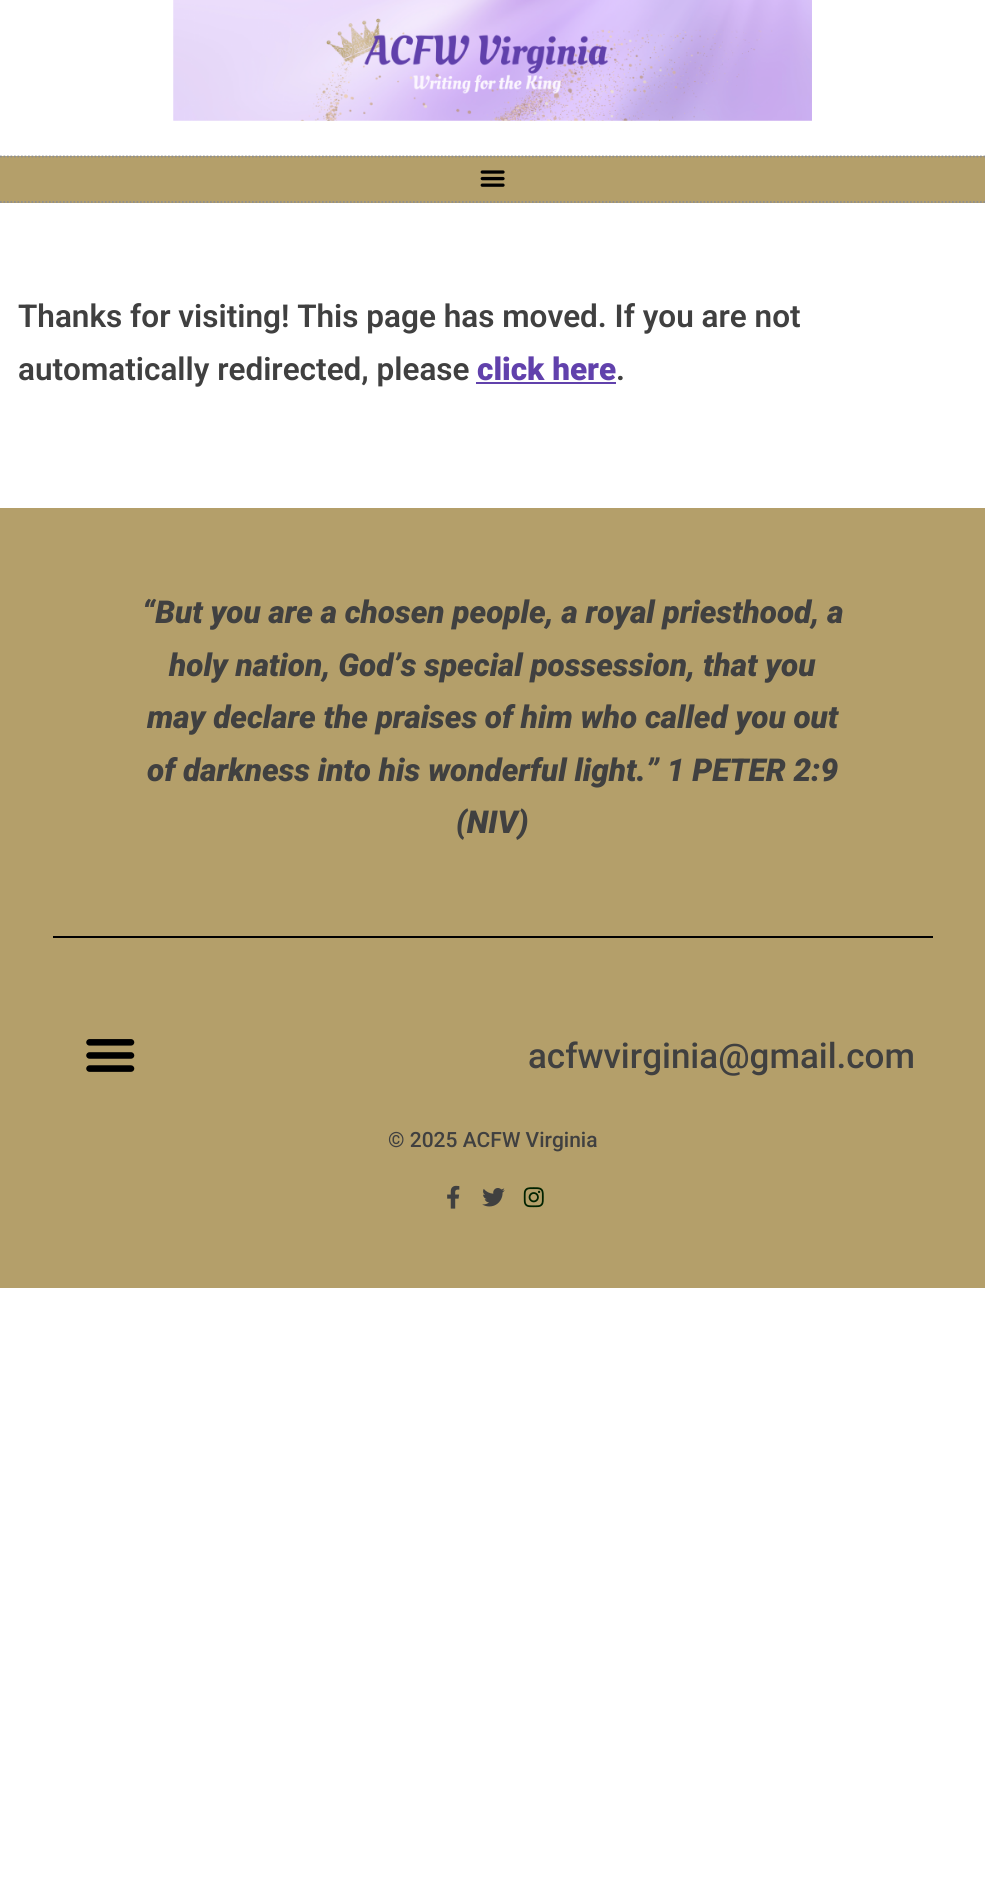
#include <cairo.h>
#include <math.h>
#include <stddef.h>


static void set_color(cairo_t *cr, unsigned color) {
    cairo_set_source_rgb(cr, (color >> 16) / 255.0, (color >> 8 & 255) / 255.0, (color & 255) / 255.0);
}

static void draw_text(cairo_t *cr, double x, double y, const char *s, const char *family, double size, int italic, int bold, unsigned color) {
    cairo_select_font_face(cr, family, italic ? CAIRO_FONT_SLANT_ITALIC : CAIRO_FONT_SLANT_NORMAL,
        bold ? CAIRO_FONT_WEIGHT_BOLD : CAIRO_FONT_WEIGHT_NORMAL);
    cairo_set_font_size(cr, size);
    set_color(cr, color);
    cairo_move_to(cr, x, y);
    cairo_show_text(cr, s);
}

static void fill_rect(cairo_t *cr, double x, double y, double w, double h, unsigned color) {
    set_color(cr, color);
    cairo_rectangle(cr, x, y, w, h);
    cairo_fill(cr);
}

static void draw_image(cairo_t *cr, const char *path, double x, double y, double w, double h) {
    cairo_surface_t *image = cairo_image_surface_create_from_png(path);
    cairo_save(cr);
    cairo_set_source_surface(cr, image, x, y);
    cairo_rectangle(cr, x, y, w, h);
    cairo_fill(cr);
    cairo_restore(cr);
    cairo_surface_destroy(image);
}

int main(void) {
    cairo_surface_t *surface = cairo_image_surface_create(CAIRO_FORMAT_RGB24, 985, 1898);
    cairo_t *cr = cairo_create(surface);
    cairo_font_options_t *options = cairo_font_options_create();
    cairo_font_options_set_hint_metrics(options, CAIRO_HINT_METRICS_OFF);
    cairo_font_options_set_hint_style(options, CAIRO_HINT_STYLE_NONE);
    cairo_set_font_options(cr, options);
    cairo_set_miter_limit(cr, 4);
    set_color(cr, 0xFFFFFF);
    cairo_paint(cr);
    draw_image(cr, "assets/img1.png", 173, 0, 639, 121);
    fill_rect(cr, 0, 156, 985, 47, 0xB49F6A);
    cairo_new_path(cr);
    cairo_move_to(cr, 0, 156.5);
    cairo_line_to(cr, 985, 156.5);
    set_color(cr, 0x8E8E8E);
    cairo_set_line_width(cr, 1.8);
    cairo_set_dash(cr, (double[]){1.75, 1.75}, 2, 0);
    cairo_stroke(cr);
    cairo_new_path(cr);
    cairo_move_to(cr, 0, 202);
    cairo_line_to(cr, 985, 202);
    cairo_stroke(cr);
    draw_image(cr, "assets/img2.png", 480, 170, 25, 17);
    draw_text(cr, 18, 327, "Thanks for visiting! This page has moved. If you are not", "Roboto SemiBold", 31.5, 0, 0, 0x404040);
    draw_text(cr, 18, 380, "automatically redirected, please", "Roboto SemiBold", 31.5, 0, 0, 0x404040);
    draw_text(cr, 477, 380, "click here", "Roboto Black", 31.5, 0, 0, 0x6141AC);
    fill_rect(cr, 476, 382, 140, 2, 0x6141AC);
    draw_text(cr, 616, 380, ".", "Roboto SemiBold", 31.5, 0, 0, 0x404040);
    fill_rect(cr, 0, 508, 985, 780, 0xB49F6A);
    draw_text(cr, 142, 623, "“But you are a chosen people, a royal priesthood, a", "Roboto Black", 31.5, 1, 0, 0x404040);
    draw_text(cr, 169, 676, "holy nation, God’s special possession, that you", "Roboto Black", 31.5, 1, 0, 0x404040);
    draw_text(cr, 147, 728, "may declare the praises of him who called you out", "Roboto Black", 31.5, 1, 0, 0x404040);
    draw_text(cr, 147, 781, "of darkness into his wonderful light.” 1 PETER 2:9", "Roboto Black", 31.5, 1, 0, 0x404040);
    draw_text(cr, 456, 833, "(NIV)", "Roboto Black", 31.5, 1, 0, 0x404040);
    fill_rect(cr, 53, 936, 880, 2, 0x000000);
    draw_image(cr, "assets/img3.png", 86, 1039, 49, 33);
    draw_text(cr, 528, 1068, "acfwvirginia@gmail.com", "Roboto Medium", 35, 0, 0, 0x404040);
    draw_text(cr, 388, 1147, "© 2025 ACFW Virginia", "Roboto Medium", 21, 0, 0, 0x404040);
    draw_image(cr, "assets/img4.png", 447, 1185, 13, 24);
    draw_image(cr, "assets/img5.png", 482, 1188, 23, 19);
    draw_image(cr, "assets/img6.png", 523, 1187, 21, 21);
    cairo_surface_write_to_png(surface, "output.png");
    cairo_font_options_destroy(options);
    cairo_destroy(cr);
    cairo_surface_destroy(surface);
    return 0;
}
